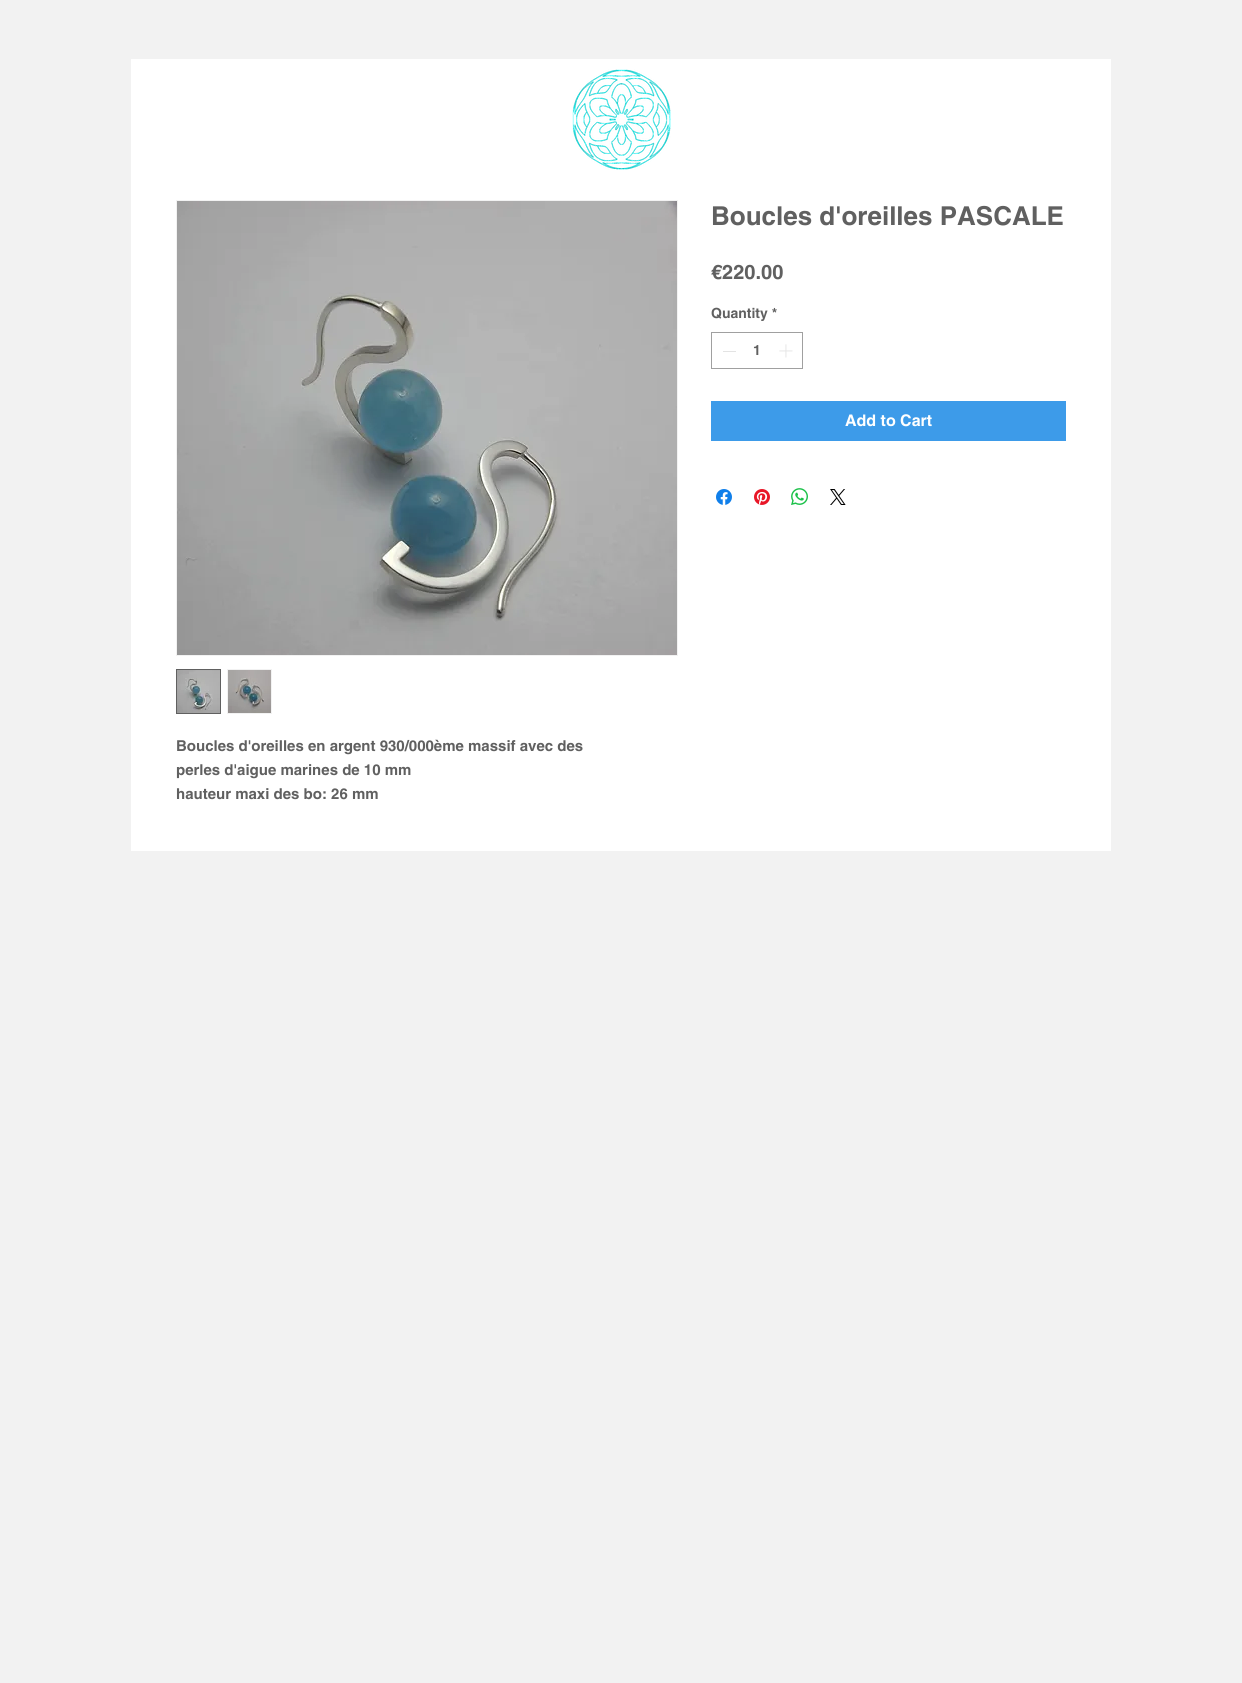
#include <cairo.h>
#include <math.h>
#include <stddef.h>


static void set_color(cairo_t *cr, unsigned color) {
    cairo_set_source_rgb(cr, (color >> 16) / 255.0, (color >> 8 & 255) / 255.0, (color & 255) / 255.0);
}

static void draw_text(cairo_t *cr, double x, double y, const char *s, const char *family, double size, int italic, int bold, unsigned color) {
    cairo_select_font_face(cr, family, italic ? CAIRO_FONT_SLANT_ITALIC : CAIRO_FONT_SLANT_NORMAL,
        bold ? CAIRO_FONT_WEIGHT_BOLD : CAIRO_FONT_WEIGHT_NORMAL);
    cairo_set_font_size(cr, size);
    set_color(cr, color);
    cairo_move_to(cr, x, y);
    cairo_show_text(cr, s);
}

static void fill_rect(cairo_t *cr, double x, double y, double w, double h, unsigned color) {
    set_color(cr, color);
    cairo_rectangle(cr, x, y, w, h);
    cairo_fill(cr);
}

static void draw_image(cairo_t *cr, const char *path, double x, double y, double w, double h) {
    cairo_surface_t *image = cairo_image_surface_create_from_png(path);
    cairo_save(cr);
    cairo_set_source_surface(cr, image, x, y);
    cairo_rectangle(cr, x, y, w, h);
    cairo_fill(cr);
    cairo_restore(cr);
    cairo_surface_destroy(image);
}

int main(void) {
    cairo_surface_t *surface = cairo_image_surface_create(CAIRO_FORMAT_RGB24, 1242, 1683);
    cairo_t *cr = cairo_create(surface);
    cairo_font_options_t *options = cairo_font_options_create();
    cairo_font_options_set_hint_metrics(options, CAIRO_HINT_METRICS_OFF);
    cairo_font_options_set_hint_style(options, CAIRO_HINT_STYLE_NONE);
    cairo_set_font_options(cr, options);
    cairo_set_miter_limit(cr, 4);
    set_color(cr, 0xF2F2F2);
    cairo_paint(cr);
    fill_rect(cr, 131, 59, 980, 792, 0xFFFFFF);
    draw_image(cr, "assets/img1.png", 572, 69, 99, 101);
    draw_text(cr, 711, 225, "Boucles d'oreilles PASCALE", "helvetica", 26, 0, 1, 0x606060);
    draw_text(cr, 711, 279, "€220.00", "helvetica", 20, 0, 1, 0x606060);
    draw_text(cr, 711, 318, "Quantity *", "helvetica", 14, 0, 1, 0x606060);
    cairo_rectangle(cr, 711.5, 332.5, 91, 36);
    set_color(cr, 0xA0A0A0);
    cairo_set_line_width(cr, 1);
    cairo_stroke(cr);
    fill_rect(cr, 723, 351, 13, 1, 0xE3E3E3);
    draw_text(cr, 753, 355, "1", "helvetica", 14, 0, 1, 0x606060);
    draw_image(cr, "assets/img2.png", 779, 344, 14, 14);
    fill_rect(cr, 711, 401, 355, 40, 0x3D9BE9);
    draw_text(cr, 845, 426, "Add to Cart", "helvetica", 16, 0, 1, 0xFFFFFF);
    draw_image(cr, "assets/img3.png", 716, 489, 16, 16);
    draw_image(cr, "assets/img4.png", 754, 489, 16, 16);
    draw_image(cr, "assets/img5.png", 791, 488, 17, 17);
    draw_image(cr, "assets/img6.png", 830, 489, 16, 16);
    cairo_rectangle(cr, 176.5, 200.5, 501, 455);
    set_color(cr, 0xF2F2F2);
    cairo_stroke(cr);
    draw_image(cr, "assets/img7.png", 177, 201, 500, 454);
    cairo_rectangle(cr, 176.5, 669.5, 44, 44);
    set_color(cr, 0x606060);
    cairo_stroke(cr);
    draw_image(cr, "assets/img8.png", 177, 670, 43, 43);
    cairo_rectangle(cr, 227.5, 669.5, 44, 44);
    set_color(cr, 0xF2F2F2);
    cairo_stroke(cr);
    draw_image(cr, "assets/img9.png", 228, 670, 43, 43);
    draw_text(cr, 176, 751, "Boucles d'oreilles en argent 930/000ème massif avec des", "helvetica", 15, 0, 1, 0x606060);
    draw_text(cr, 176, 775, "perles d'aigue marines de 10 mm", "helvetica", 15, 0, 1, 0x606060);
    draw_text(cr, 176, 799, "hauteur maxi des bo: 26 mm", "helvetica", 15, 0, 1, 0x606060);
    cairo_surface_write_to_png(surface, "output.png");
    cairo_font_options_destroy(options);
    cairo_destroy(cr);
    cairo_surface_destroy(surface);
    return 0;
}
